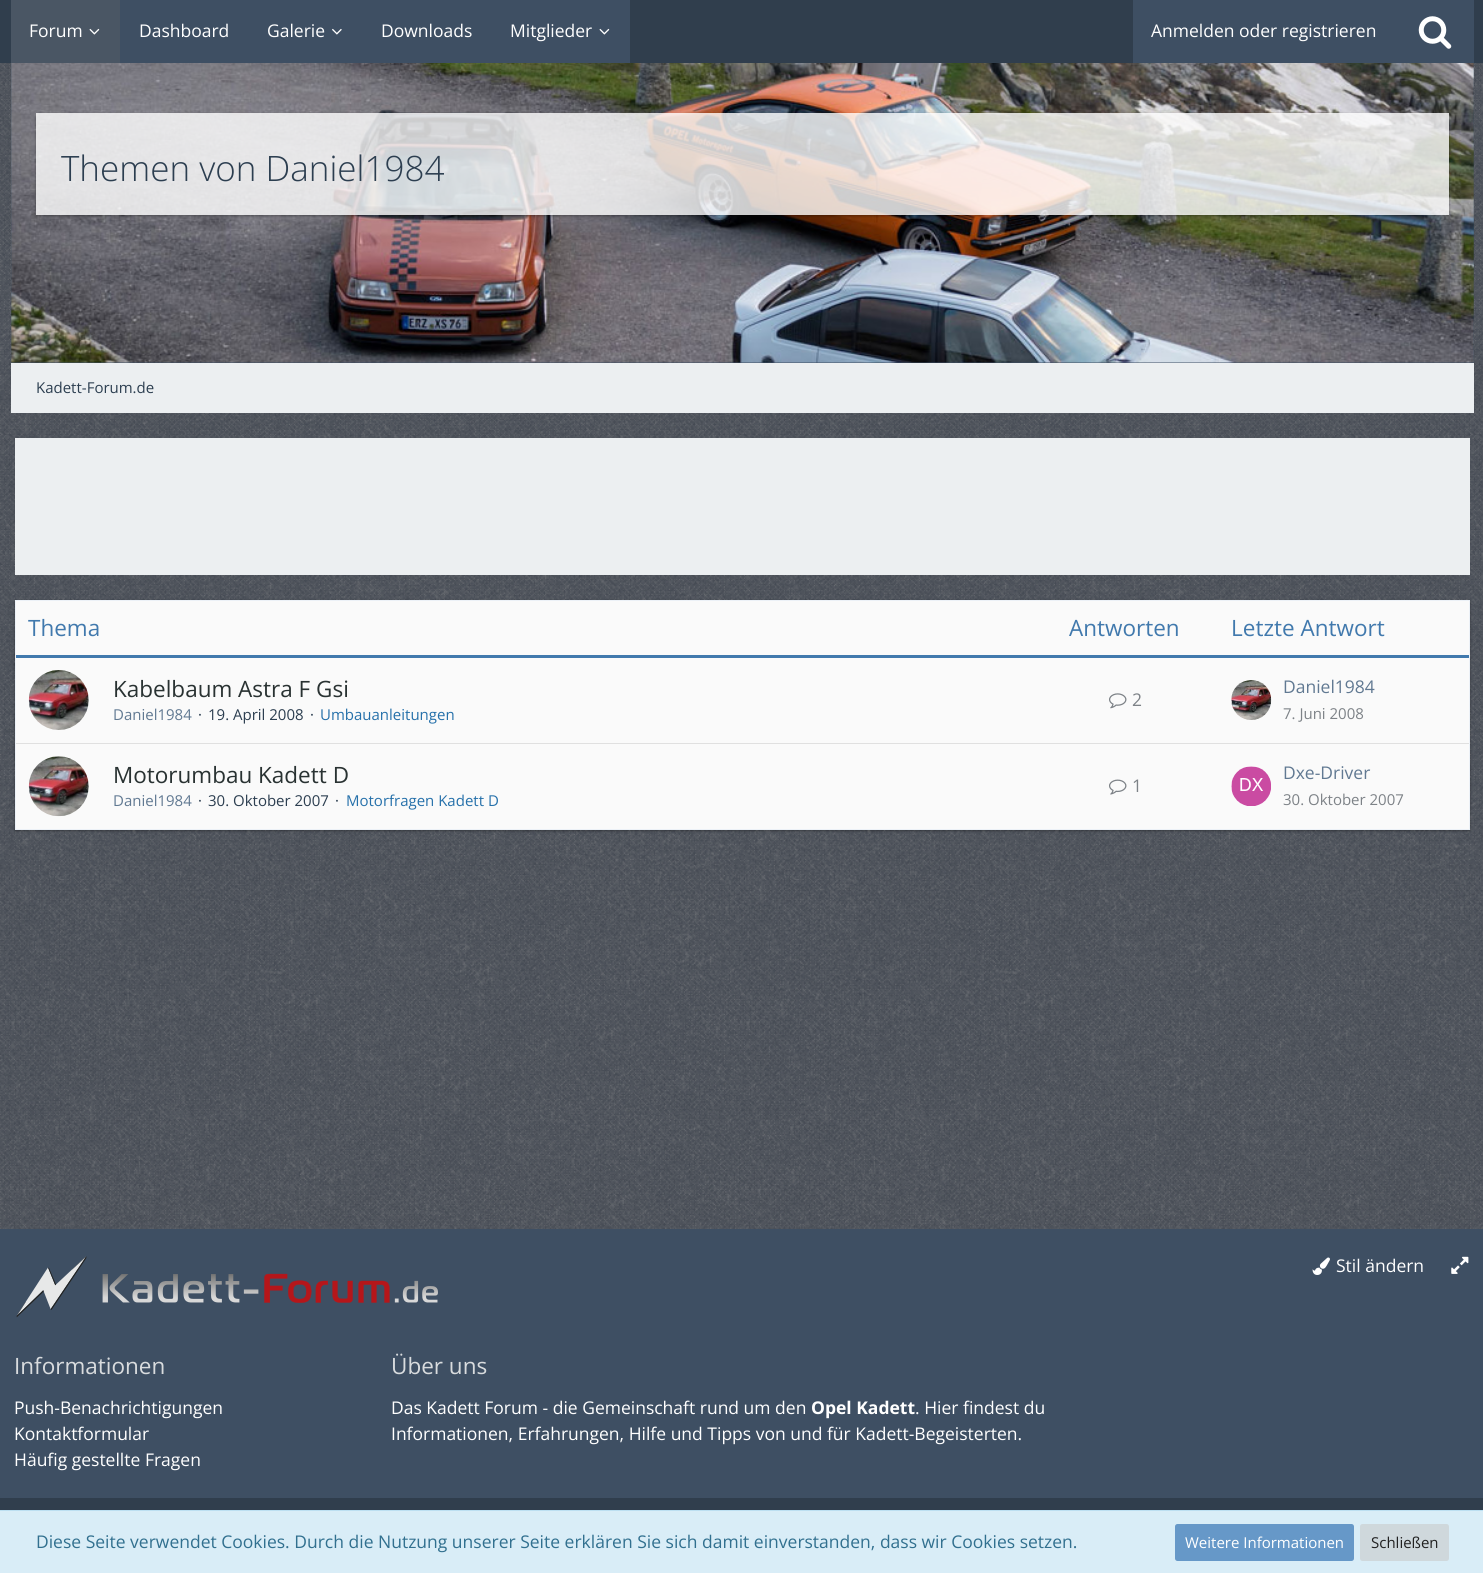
#include <cairo.h>
#include <math.h>
#include <stddef.h>


static void set_color(cairo_t *cr, unsigned color) {
    cairo_set_source_rgb(cr, (color >> 16) / 255.0, (color >> 8 & 255) / 255.0, (color & 255) / 255.0);
}

static void draw_text(cairo_t *cr, double x, double y, const char *s, const char *family, double size, int italic, int bold, unsigned color) {
    cairo_select_font_face(cr, family, italic ? CAIRO_FONT_SLANT_ITALIC : CAIRO_FONT_SLANT_NORMAL,
        bold ? CAIRO_FONT_WEIGHT_BOLD : CAIRO_FONT_WEIGHT_NORMAL);
    cairo_set_font_size(cr, size);
    set_color(cr, color);
    cairo_move_to(cr, x, y);
    cairo_show_text(cr, s);
}

static void fill_rect(cairo_t *cr, double x, double y, double w, double h, unsigned color) {
    set_color(cr, color);
    cairo_rectangle(cr, x, y, w, h);
    cairo_fill(cr);
}

static void rounded_rect(cairo_t *cr, double x, double y, double w, double h, double r) {
    cairo_new_sub_path(cr);
    cairo_arc(cr, x + w - r, y + h - r, r, 0, M_PI / 2);
    cairo_arc(cr, x + r, y + h - r, r, M_PI / 2, M_PI);
    cairo_arc(cr, x + r, y + r, r, M_PI, 1.5 * M_PI);
    cairo_arc(cr, x + w - r, y + r, r, 1.5 * M_PI, 2 * M_PI);
    cairo_close_path(cr);
}

static void draw_shadow(cairo_t *cr, double x, double y, double w, double h, double r, double blur, double alpha) {
    cairo_push_group_with_content(cr, CAIRO_CONTENT_ALPHA);
    cairo_set_operator(cr, CAIRO_OPERATOR_SOURCE);
    for (int i = 15; i >= -15 && fmin(w, h) + blur * i / 3 > 0; i -= 2) {
        double e = blur * i / 6;
        cairo_set_source_rgba(cr, 0, 0, 0, alpha * erfc((i - 1) / 8.5) / 2);
        rounded_rect(cr, x - e, y - e, w + 2 * e, h + 2 * e, fmax(0, fmin(r + e + blur * .6, fmin(w, h) / 2 + e)));
        cairo_fill(cr);
    }
    cairo_pattern_t *soft = cairo_pop_group(cr);
    cairo_mask(cr, soft);
    cairo_pattern_destroy(soft);
}

static void draw_image(cairo_t *cr, const char *path, double x, double y, double w, double h) {
    cairo_surface_t *image = cairo_image_surface_create_from_png(path);
    cairo_save(cr);
    cairo_set_source_surface(cr, image, x, y);
    cairo_rectangle(cr, x, y, w, h);
    cairo_fill(cr);
    cairo_restore(cr);
    cairo_surface_destroy(image);
}

int main(void) {
    cairo_surface_t *surface = cairo_image_surface_create(CAIRO_FORMAT_RGB24, 1483, 1573);
    cairo_t *cr = cairo_create(surface);
    cairo_font_options_t *options = cairo_font_options_create();
    cairo_font_options_set_hint_metrics(options, CAIRO_HINT_METRICS_OFF);
    cairo_font_options_set_hint_style(options, CAIRO_HINT_STYLE_NONE);
    cairo_set_font_options(cr, options);
    cairo_set_miter_limit(cr, 4);
    set_color(cr, 0x192335);
    cairo_paint(cr);
    draw_image(cr, "assets/img1.png", 0, 63, 1483, 1166);
    fill_rect(cr, 0, 0, 1483, 63, 0x303E4D);
    fill_rect(cr, 11, 0, 109, 63, 0x4A5664);
    draw_text(cr, 29, 37, "Forum", "Open Sans", 17.5, 0, 0, 0xFFFFFF);
    draw_image(cr, "assets/img2.png", 89, 28, 11, 7);
    fill_rect(cr, 120, 0, 510, 63, 0x3E4F63);
    draw_text(cr, 139, 37, "Dashboard", "Open Sans", 17.5, 0, 0, 0xFFFFFF);
    draw_text(cr, 267, 37, "Galerie", "Open Sans", 17.5, 0, 0, 0xFFFFFF);
    draw_image(cr, "assets/img3.png", 332, 28, 10, 7);
    draw_text(cr, 381, 37, "Downloads", "Open Sans", 17.5, 0, 0, 0xFFFFFF);
    draw_text(cr, 510, 37, "Mitglieder", "Open Sans", 17.5, 0, 0, 0xFFFFFF);
    draw_image(cr, "assets/img4.png", 599, 28, 11, 7);
    fill_rect(cr, 1133, 0, 341, 63, 0x3E4F63);
    draw_text(cr, 1151, 37, "Anmelden oder registrieren", "Open Sans", 17.5, 0, 0, 0xFFFFFF);
    draw_image(cr, "assets/img5.png", 1418, 16, 34, 33);
    fill_rect(cr, 11, 63, 1463, 300, 0x3E4F63);
    draw_image(cr, "assets/img6.png", 11, 63, 1463, 300);
    cairo_save(cr);
    cairo_set_fill_rule(cr, CAIRO_FILL_RULE_EVEN_ODD);
    cairo_new_path(cr);
    cairo_move_to(cr, 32, 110);
    cairo_line_to(cr, 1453, 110);
    cairo_line_to(cr, 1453, 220);
    cairo_line_to(cr, 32, 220);
    cairo_close_path(cr);
    cairo_move_to(cr, 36, 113);
    cairo_line_to(cr, 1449, 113);
    cairo_line_to(cr, 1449, 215);
    cairo_line_to(cr, 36, 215);
    cairo_close_path(cr);
    cairo_clip(cr);
    set_color(cr, 0x000000);
    draw_shadow(cr, 36, 114, 1413, 102, 0, 1, 0.24);
    cairo_restore(cr);
    cairo_save(cr);
    cairo_set_fill_rule(cr, CAIRO_FILL_RULE_EVEN_ODD);
    cairo_new_path(cr);
    cairo_move_to(cr, 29, 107);
    cairo_line_to(cr, 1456, 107);
    cairo_line_to(cr, 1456, 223);
    cairo_line_to(cr, 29, 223);
    cairo_close_path(cr);
    cairo_move_to(cr, 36, 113);
    cairo_line_to(cr, 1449, 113);
    cairo_line_to(cr, 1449, 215);
    cairo_line_to(cr, 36, 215);
    cairo_close_path(cr);
    cairo_clip(cr);
    set_color(cr, 0x000000);
    draw_shadow(cr, 36, 114, 1413, 102, 0, 2, 0.12);
    cairo_restore(cr);
    cairo_set_source_rgba(cr, 1, 1, 1, 0.8);
    cairo_rectangle(cr, 36, 113, 1413, 102);
    cairo_fill(cr);
    draw_text(cr, 61, 181, "Themen von Daniel1984", "Open Sans Light", 35, 0, 0, 0x2C3E50);
    fill_rect(cr, 15, 438, 1455, 137, 0xECEFF1);
    set_color(cr, 0x000000);
    draw_shadow(cr, 15, 601, 1455, 230, 0, 1, 0.24);
    draw_shadow(cr, 15, 601, 1455, 230, 0, 2, 0.12);
    set_color(cr, 0xFAFAFA);
    cairo_rectangle(cr, 15.5, 600.5, 1454, 229);
    cairo_fill_preserve(cr);
    set_color(cr, 0xECF1F7);
    cairo_set_line_width(cr, 1);
    cairo_stroke(cr);
    fill_rect(cr, 16, 655, 1453, 3, 0x4179AD);
    draw_text(cr, 28, 636, "Thema", "Open Sans", 22.5, 0, 0, 0x4179AD);
    draw_text(cr, 1069, 636, "Antworten", "Open Sans", 22.5, 0, 0, 0x4179AD);
    draw_text(cr, 1231, 636, "Letzte Antwort", "Open Sans", 22.5, 0, 0, 0x4179AD);
    set_color(cr, 0xFFFFFF);
    cairo_new_path(cr);
    cairo_arc(cr, 59, 700, 30, 0, 2 * M_PI);
    cairo_fill(cr);
    draw_image(cr, "assets/img7.png", 28, 670, 61, 60);
    draw_text(cr, 113, 697, "Kabelbaum Astra F Gsi", "Open Sans", 22.5, 0, 0, 0x293232);
    draw_text(cr, 113, 720, "Daniel1984", "Open Sans", 15, 0, 0, 0x617992);
    draw_text(cr, 198, 720, "·", "Open Sans", 15, 0, 0, 0x2C3E50);
    draw_text(cr, 208, 720, "19. April 2008", "Open Sans", 15, 0, 0, 0x2C3E50);
    draw_text(cr, 310, 720, "·", "Open Sans", 15, 0, 0, 0x2C3E50);
    draw_text(cr, 320, 720, "Umbauanleitungen", "Open Sans", 15, 0, 0, 0x2570AA);
    draw_image(cr, "assets/img8.png", 1109, 693, 18, 16);
    draw_text(cr, 1132, 706, "2", "Open Sans", 17.5, 0, 0, 0x7D8287);
    set_color(cr, 0xFFFFFF);
    cairo_new_path(cr);
    cairo_arc(cr, 1251, 700, 20, 0, 2 * M_PI);
    cairo_fill(cr);
    draw_image(cr, "assets/img9.png", 1231, 680, 41, 40);
    draw_text(cr, 1283, 693, "Daniel1984", "Open Sans", 17.5, 0, 0, 0x617992);
    draw_text(cr, 1283, 719, "7. Juni 2008", "Open Sans", 15, 0, 0, 0x7D8287);
    fill_rect(cr, 16, 743, 1453, 1, 0xE0E0E0);
    set_color(cr, 0xFFFFFF);
    cairo_new_path(cr);
    cairo_arc(cr, 59, 786, 30, 0, 2 * M_PI);
    cairo_fill(cr);
    draw_image(cr, "assets/img10.png", 28, 756, 61, 61);
    draw_text(cr, 113, 783, "Motorumbau Kadett D", "Open Sans", 22.5, 0, 0, 0x293232);
    draw_text(cr, 113, 806, "Daniel1984", "Open Sans", 15, 0, 0, 0x617992);
    draw_text(cr, 198, 806, "·", "Open Sans", 15, 0, 0, 0x2C3E50);
    draw_text(cr, 208, 806, "30. Oktober 2007", "Open Sans", 15, 0, 0, 0x2C3E50);
    draw_text(cr, 335, 806, "·", "Open Sans", 15, 0, 0, 0x2C3E50);
    draw_text(cr, 346, 806, "Motorfragen Kadett D", "Open Sans", 15, 0, 0, 0x2570AA);
    draw_image(cr, "assets/img11.png", 1109, 779, 18, 16);
    draw_text(cr, 1132, 792, "1", "Open Sans", 17.5, 0, 0, 0x7D8287);
    set_color(cr, 0xFFFFFF);
    cairo_new_path(cr);
    cairo_arc(cr, 1251, 786, 20, 0, 2 * M_PI);
    cairo_fill(cr);
    draw_image(cr, "assets/img12.png", 1231, 766, 40, 40);
    draw_text(cr, 1283, 779, "Dxe-Driver", "Open Sans", 17.5, 0, 0, 0x617992);
    draw_text(cr, 1283, 805, "30. Oktober 2007", "Open Sans", 15, 0, 0, 0x7D8287);
    fill_rect(cr, 11, 363, 1463, 50, 0xECEFF1);
    draw_text(cr, 36, 393, "Kadett-Forum.de", "Open Sans", 15, 0, 0, 0x2C3E50);
    fill_rect(cr, 0, 1229, 1483, 269, 0x3E4F63);
    draw_image(cr, "assets/img13.png", 1312, 1257, 18, 18);
    draw_text(cr, 1336, 1272, "Stil ändern", "Open Sans", 17.5, 0, 0, 0xFFFFFF);
    draw_image(cr, "assets/img14.png", 1451, 1256, 18, 18);
    draw_image(cr, "assets/img15.png", 16, 1256, 422, 62);
    draw_text(cr, 14, 1374, "Informationen", "Open Sans", 22.5, 0, 0, 0xD9DCDE);
    draw_text(cr, 14, 1414, "Push-Benachrichtigungen", "Open Sans", 17.5, 0, 0, 0xFFFFFF);
    draw_text(cr, 14, 1440, "Kontaktformular", "Open Sans", 17.5, 0, 0, 0xFFFFFF);
    draw_text(cr, 14, 1466, "Häufig gestellte Fragen", "Open Sans", 17.5, 0, 0, 0xFFFFFF);
    draw_text(cr, 391, 1374, "Über uns", "Open Sans", 22.5, 0, 0, 0xD9DCDE);
    draw_text(cr, 391, 1414, "Das Kadett Forum - die Gemeinschaft rund um den", "Open Sans", 17.5, 0, 0, 0xFFFFFF);
    draw_text(cr, 811, 1414, "Opel Kadett", "Open Sans", 17.5, 0, 1, 0xFFFFFF);
    draw_text(cr, 915, 1414, ". Hier findest du", "Open Sans", 17.5, 0, 0, 0xFFFFFF);
    draw_text(cr, 391, 1440, "Informationen, Erfahrungen, Hilfe und Tipps von und für Kadett-Begeisterten.", "Open Sans", 17.5, 0, 0, 0xFFFFFF);
    fill_rect(cr, 0, 1498, 1483, 12, 0x303E4D);
    fill_rect(cr, 0, 1511, 1483, 62, 0xD9EDF7);
    fill_rect(cr, 0, 1510, 1483, 1, 0xBCDFF1);
    draw_text(cr, 36, 1548, "Diese Seite verwendet Cookies. Durch die Nutzung unserer Seite erklären Sie sich damit einverstanden, dass wir Cookies setzen.", "Open Sans", 17.5, 0, 0, 0x31708F);
    set_color(cr, 0x6698C8);
    rounded_rect(cr, 1175, 1524, 179, 37, 2.5);
    cairo_fill(cr);
    draw_text(cr, 1185, 1548, "Weitere Informationen", "Open Sans", 15, 0, 0, 0xFFFFFF);
    set_color(cr, 0xCFD8DC);
    rounded_rect(cr, 1360, 1524, 89, 37, 2.5);
    cairo_fill(cr);
    draw_text(cr, 1371, 1548, "Schließen", "Open Sans", 15, 0, 0, 0x212121);
    cairo_surface_write_to_png(surface, "output.png");
    cairo_font_options_destroy(options);
    cairo_destroy(cr);
    cairo_surface_destroy(surface);
    return 0;
}
